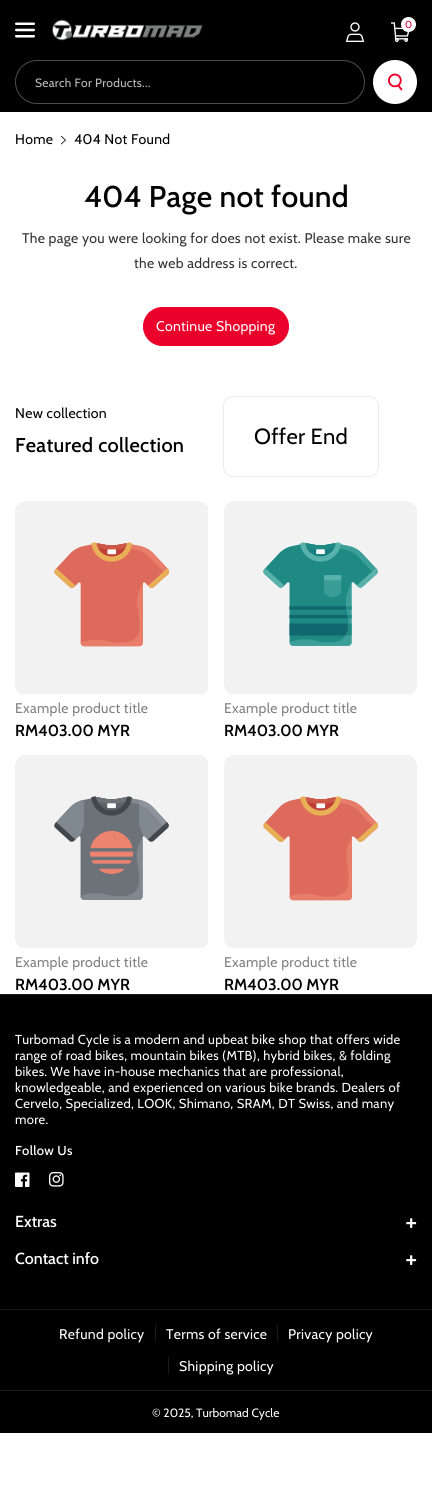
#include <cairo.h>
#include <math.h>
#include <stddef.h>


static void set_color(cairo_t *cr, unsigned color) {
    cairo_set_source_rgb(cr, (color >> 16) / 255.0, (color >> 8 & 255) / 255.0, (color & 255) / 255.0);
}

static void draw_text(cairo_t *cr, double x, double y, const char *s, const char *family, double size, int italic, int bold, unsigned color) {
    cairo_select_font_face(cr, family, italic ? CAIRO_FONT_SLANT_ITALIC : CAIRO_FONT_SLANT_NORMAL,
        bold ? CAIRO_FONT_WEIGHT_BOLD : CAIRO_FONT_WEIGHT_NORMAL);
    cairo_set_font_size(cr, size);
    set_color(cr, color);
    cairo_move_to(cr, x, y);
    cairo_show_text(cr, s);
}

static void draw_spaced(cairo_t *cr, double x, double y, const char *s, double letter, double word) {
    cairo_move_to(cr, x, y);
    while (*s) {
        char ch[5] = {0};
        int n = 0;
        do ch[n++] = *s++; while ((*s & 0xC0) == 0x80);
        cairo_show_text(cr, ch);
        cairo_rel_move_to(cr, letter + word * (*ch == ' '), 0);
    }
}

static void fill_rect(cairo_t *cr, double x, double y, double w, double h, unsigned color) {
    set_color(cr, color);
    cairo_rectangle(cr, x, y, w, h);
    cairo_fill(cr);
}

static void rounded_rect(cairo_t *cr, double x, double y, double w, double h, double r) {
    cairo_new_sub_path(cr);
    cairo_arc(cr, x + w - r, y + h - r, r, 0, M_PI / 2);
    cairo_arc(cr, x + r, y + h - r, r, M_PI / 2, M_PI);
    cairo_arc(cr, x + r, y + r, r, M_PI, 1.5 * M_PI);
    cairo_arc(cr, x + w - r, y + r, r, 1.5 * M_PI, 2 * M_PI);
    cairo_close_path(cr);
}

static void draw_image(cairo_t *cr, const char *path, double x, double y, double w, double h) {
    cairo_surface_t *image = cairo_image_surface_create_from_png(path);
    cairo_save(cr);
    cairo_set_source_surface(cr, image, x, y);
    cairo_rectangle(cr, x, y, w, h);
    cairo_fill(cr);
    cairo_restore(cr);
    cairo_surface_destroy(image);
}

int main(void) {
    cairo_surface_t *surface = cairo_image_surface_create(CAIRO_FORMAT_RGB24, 432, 1511);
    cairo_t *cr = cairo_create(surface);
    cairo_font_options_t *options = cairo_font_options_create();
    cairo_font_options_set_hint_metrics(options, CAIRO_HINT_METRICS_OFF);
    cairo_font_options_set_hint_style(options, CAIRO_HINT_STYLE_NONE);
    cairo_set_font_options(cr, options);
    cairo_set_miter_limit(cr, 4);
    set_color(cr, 0xFFFFFF);
    cairo_paint(cr);
    fill_rect(cr, 0, 0, 432, 112, 0x000000);
    draw_image(cr, "assets/img1.png", 15, 22, 20, 16);
    draw_image(cr, "assets/img2.png", 52, 19, 151, 22);
    draw_image(cr, "assets/img3.png", 345, 22, 20, 20);
    draw_image(cr, "assets/img4.png", 391, 22, 19, 20);
    set_color(cr, 0xFFFFFF);
    cairo_arc(cr, 408.5, 24.5, 7.5, 0, 2 * M_PI);
    cairo_fill(cr);
    cairo_select_font_face(cr, "Cabin", CAIRO_FONT_SLANT_NORMAL, CAIRO_FONT_WEIGHT_NORMAL);
    cairo_set_font_size(cr, 10);
    set_color(cr, 0xEA002A);
    draw_spaced(cr, 405, 28, "0", 0.3, 0);
    rounded_rect(cr, 15.5, 60.5, 349, 43, 21.5);
    set_color(cr, 0x4D4D4D);
    cairo_set_line_width(cr, 1);
    cairo_stroke(cr);
    cairo_set_font_size(cr, 12);
    set_color(cr, 0xBFBFBF);
    draw_spaced(cr, 35, 87, "Search For Products...", 0.3, 0);
    set_color(cr, 0xFFFFFF);
    cairo_new_path(cr);
    cairo_arc(cr, 395, 82, 22, 0, 2 * M_PI);
    cairo_fill(cr);
    draw_image(cr, "assets/img5.png", 388, 73, 15, 18);
    cairo_set_font_size(cr, 14);
    set_color(cr, 0x000000);
    draw_spaced(cr, 15, 144, "Home", 0.3, 0);
    draw_image(cr, "assets/img6.png", 60, 135, 6, 10);
    draw_spaced(cr, 74, 144, "404 Not Found", 0.3, 0);
    cairo_select_font_face(cr, "Cabin Medium", CAIRO_FONT_SLANT_NORMAL, CAIRO_FONT_WEIGHT_NORMAL);
    cairo_set_font_size(cr, 30);
    draw_spaced(cr, 84, 207, "404 Page not found", 0.3, 0);
    cairo_select_font_face(cr, "Cabin", CAIRO_FONT_SLANT_NORMAL, CAIRO_FONT_WEIGHT_NORMAL);
    cairo_set_font_size(cr, 14);
    set_color(cr, 0x333333);
    draw_spaced(cr, 22, 243, "The page you were looking for does not exist. Please make sure", 0.3, 0);
    draw_spaced(cr, 134, 268, "the web address is correct.", 0.3, 0);
    set_color(cr, 0xEA002A);
    rounded_rect(cr, 143.5, 307.5, 145, 38, 19);
    cairo_fill_preserve(cr);
    cairo_stroke(cr);
    set_color(cr, 0xFFFFFF);
    draw_spaced(cr, 156, 331, "Continue Shopping", 0.3, 0);
    set_color(cr, 0x000000);
    draw_spaced(cr, 15, 418, "New collection", 0.3, 0);
    cairo_select_font_face(cr, "Cabin Medium", CAIRO_FONT_SLANT_NORMAL, CAIRO_FONT_WEIGHT_NORMAL);
    cairo_set_font_size(cr, 20);
    draw_spaced(cr, 15, 452, "Featured collection", 0.3, 0);
    rounded_rect(cr, 223.5, 396.5, 155, 80, 9.5);
    set_color(cr, 0xEBEBEB);
    cairo_stroke(cr);
    cairo_select_font_face(cr, "Cabin", CAIRO_FONT_SLANT_NORMAL, CAIRO_FONT_WEIGHT_NORMAL);
    cairo_set_font_size(cr, 22);
    set_color(cr, 0x000000);
    draw_spaced(cr, 254, 444, "Offer End", 0.3, 0);
    draw_image(cr, "assets/img7.png", 15, 501, 193, 193);
    cairo_set_font_size(cr, 14);
    set_color(cr, 0x808080);
    draw_spaced(cr, 15, 713, "Example product title", 0.3, 0);
    draw_text(cr, 15, 736, "RM403.00 MYR", "Cabin SemiBold", 16, 0, 0, 0x000000);
    draw_image(cr, "assets/img8.png", 224, 501, 193, 193);
    cairo_select_font_face(cr, "Cabin", CAIRO_FONT_SLANT_NORMAL, CAIRO_FONT_WEIGHT_NORMAL);
    cairo_set_font_size(cr, 14);
    set_color(cr, 0x808080);
    draw_spaced(cr, 224, 713, "Example product title", 0.3, 0);
    draw_text(cr, 224, 736, "RM403.00 MYR", "Cabin SemiBold", 16, 0, 0, 0x000000);
    draw_image(cr, "assets/img9.png", 15, 755, 193, 193);
    cairo_select_font_face(cr, "Cabin", CAIRO_FONT_SLANT_NORMAL, CAIRO_FONT_WEIGHT_NORMAL);
    cairo_set_font_size(cr, 14);
    set_color(cr, 0x808080);
    draw_spaced(cr, 15, 967, "Example product title", 0.3, 0);
    draw_text(cr, 15, 990, "RM403.00 MYR", "Cabin SemiBold", 16, 0, 0, 0x000000);
    draw_image(cr, "assets/img10.png", 224, 755, 193, 193);
    cairo_select_font_face(cr, "Cabin", CAIRO_FONT_SLANT_NORMAL, CAIRO_FONT_WEIGHT_NORMAL);
    cairo_set_font_size(cr, 14);
    set_color(cr, 0x808080);
    draw_spaced(cr, 224, 967, "Example product title", 0.3, 0);
    draw_text(cr, 224, 990, "RM403.00 MYR", "Cabin SemiBold", 16, 0, 0, 0x000000);
    fill_rect(cr, 0, 995, 432, 438, 0x000000);
    fill_rect(cr, 0, 994, 432, 1, 0x1A1A1A);
    cairo_select_font_face(cr, "Cabin", CAIRO_FONT_SLANT_NORMAL, CAIRO_FONT_WEIGHT_NORMAL);
    cairo_set_font_size(cr, 13);
    set_color(cr, 0xFFFFFF);
    draw_spaced(cr, 15, 1044, "Turbomad Cycle is a modern and upbeat bike shop that offers wide", 0.3, 0);
    draw_spaced(cr, 15, 1060, "range of road bikes, mountain bikes (MTB), hybrid bikes, & folding", 0.3, 0);
    draw_spaced(cr, 15, 1076, "bikes. We have in-house mechanics that are professional,", 0.3, 0);
    draw_spaced(cr, 15, 1092, "knowledgeable, and experienced on various bike brands. Dealers of", 0.3, 0);
    draw_spaced(cr, 15, 1108, "Cervelo, Specialized, LOOK, Shimano, SRAM, DT Swiss, and many", 0.3, 0);
    draw_spaced(cr, 15, 1124, "more.", 0.3, 0);
    cairo_select_font_face(cr, "Cabin Medium", CAIRO_FONT_SLANT_NORMAL, CAIRO_FONT_WEIGHT_NORMAL);
    draw_spaced(cr, 15, 1155, "Follow Us", 0.3, 0);
    draw_image(cr, "assets/img11.png", 15, 1172, 15, 15);
    draw_image(cr, "assets/img12.png", 49, 1172, 15, 15);
    draw_text(cr, 15, 1227, "Extras", "Cabin Medium", 16, 0, 0, 0xFFFFFF);
    draw_text(cr, 405, 1231, "+", "Cabin", 28, 0, 0, 0xFFFFFF);
    draw_text(cr, 15, 1264, "Contact info", "Cabin Medium", 16, 0, 0, 0xFFFFFF);
    draw_text(cr, 405, 1268, "+", "Cabin", 28, 0, 0, 0xFFFFFF);
    fill_rect(cr, 0, 1309, 432, 1, 0x1A1A1A);
    cairo_set_font_size(cr, 14);
    set_color(cr, 0xFFFFFF);
    draw_spaced(cr, 59, 1339, "Refund policy", 0.3, 0);
    fill_rect(cr, 155, 1325, 1, 17, 0x1A1A1A);
    set_color(cr, 0xFFFFFF);
    draw_spaced(cr, 166, 1339, "Terms of service", 0.3, 0);
    fill_rect(cr, 277, 1325, 1, 17, 0x1A1A1A);
    set_color(cr, 0xFFFFFF);
    draw_spaced(cr, 288, 1339, "Privacy policy", 0.3, 0);
    fill_rect(cr, 168, 1357, 1, 17, 0x1A1A1A);
    set_color(cr, 0xFFFFFF);
    draw_spaced(cr, 179, 1371, "Shipping policy", 0.3, 0);
    fill_rect(cr, 0, 1390, 432, 1, 0x1A1A1A);
    draw_text(cr, 152, 1417, "© 2025, Turbomad Cycle", "Cabin", 12, 0, 0, 0xFFFFFF);
    cairo_surface_write_to_png(surface, "output.png");
    cairo_font_options_destroy(options);
    cairo_destroy(cr);
    cairo_surface_destroy(surface);
    return 0;
}
